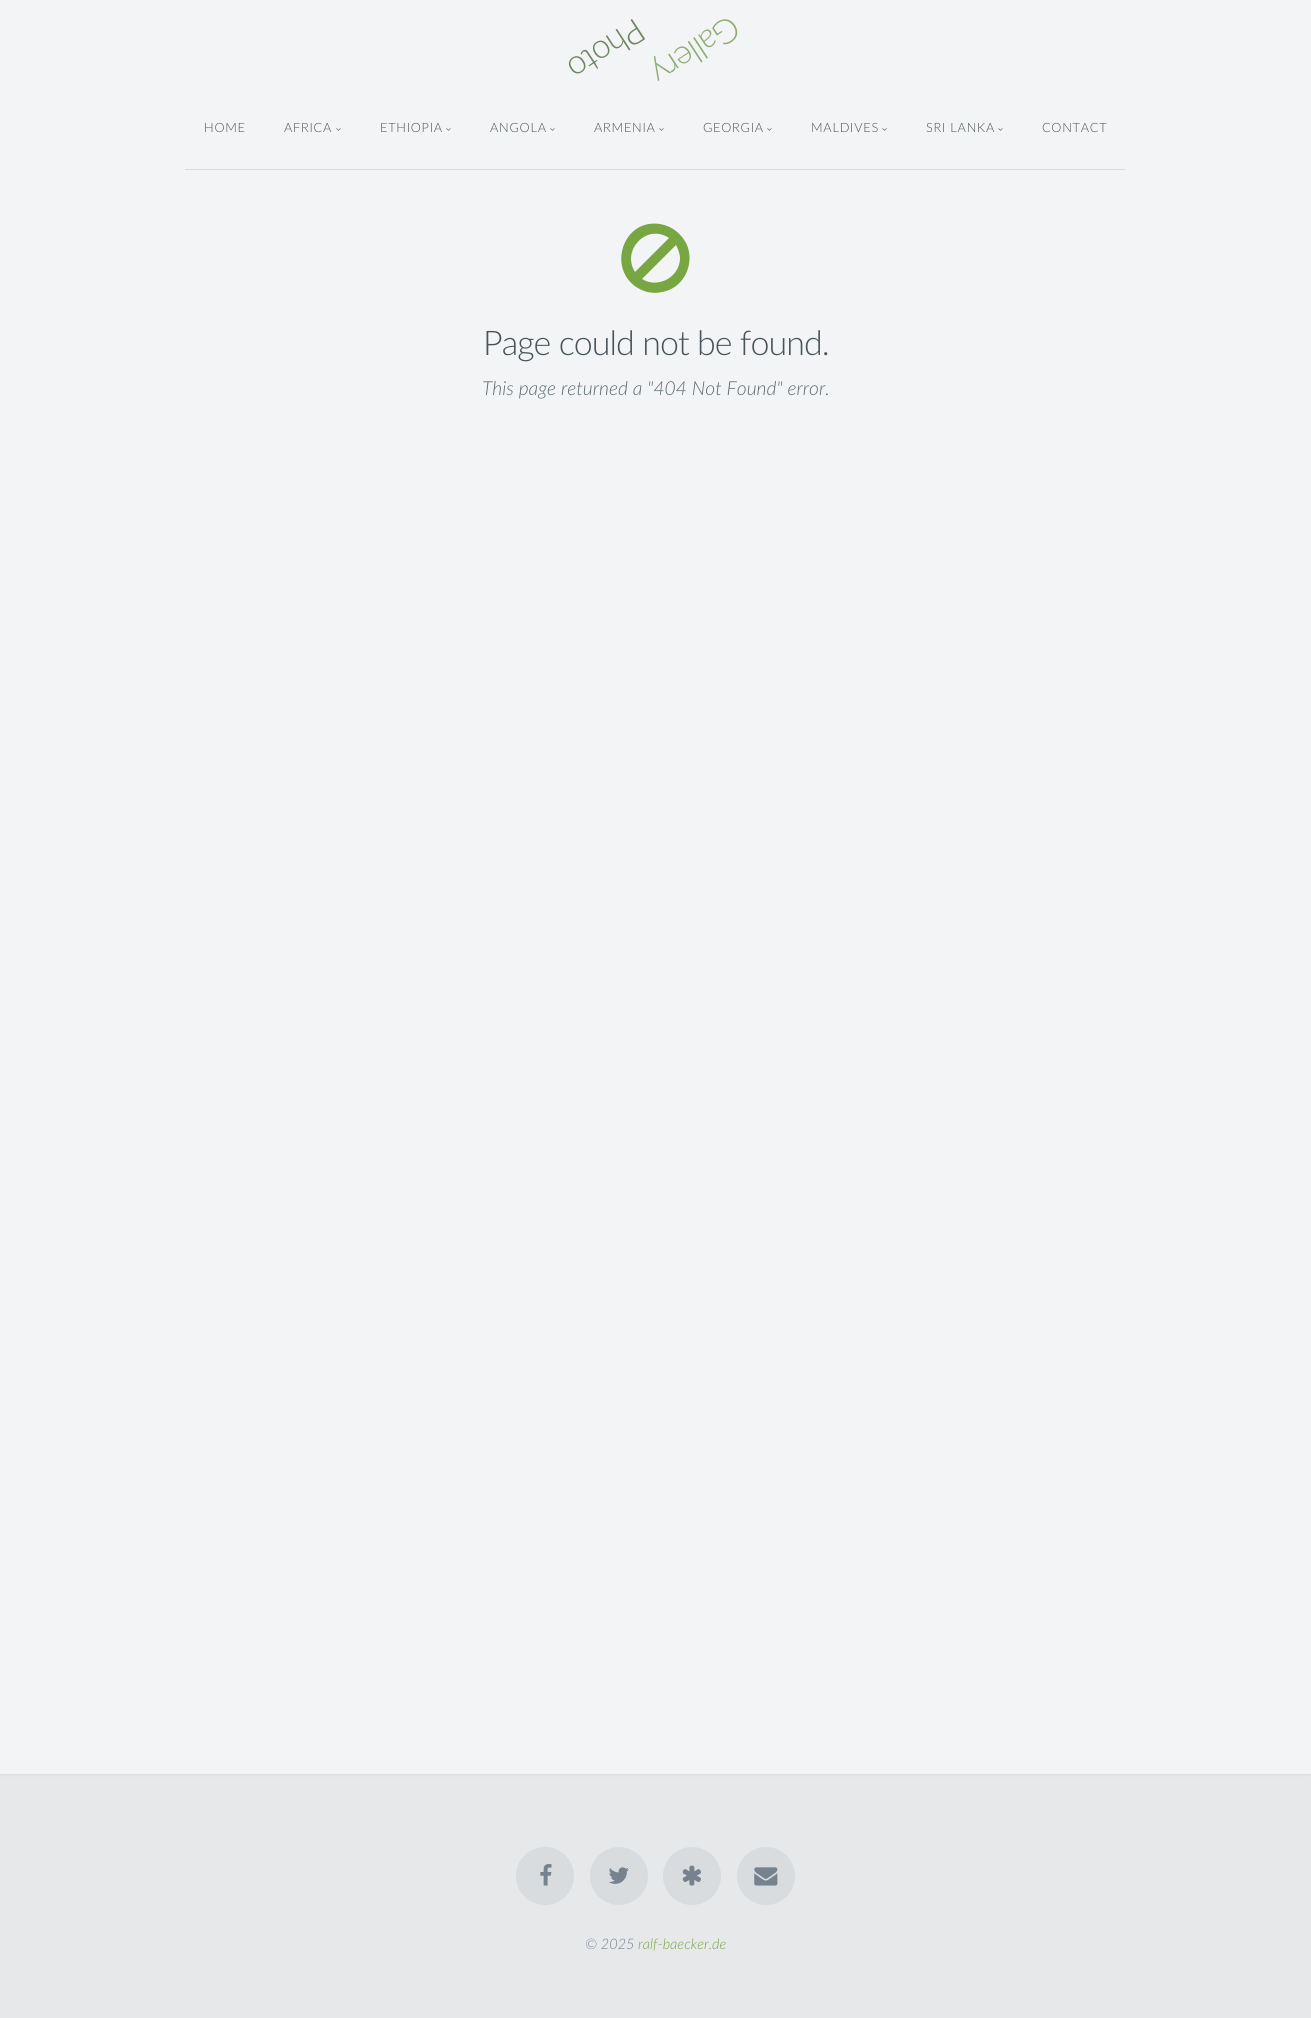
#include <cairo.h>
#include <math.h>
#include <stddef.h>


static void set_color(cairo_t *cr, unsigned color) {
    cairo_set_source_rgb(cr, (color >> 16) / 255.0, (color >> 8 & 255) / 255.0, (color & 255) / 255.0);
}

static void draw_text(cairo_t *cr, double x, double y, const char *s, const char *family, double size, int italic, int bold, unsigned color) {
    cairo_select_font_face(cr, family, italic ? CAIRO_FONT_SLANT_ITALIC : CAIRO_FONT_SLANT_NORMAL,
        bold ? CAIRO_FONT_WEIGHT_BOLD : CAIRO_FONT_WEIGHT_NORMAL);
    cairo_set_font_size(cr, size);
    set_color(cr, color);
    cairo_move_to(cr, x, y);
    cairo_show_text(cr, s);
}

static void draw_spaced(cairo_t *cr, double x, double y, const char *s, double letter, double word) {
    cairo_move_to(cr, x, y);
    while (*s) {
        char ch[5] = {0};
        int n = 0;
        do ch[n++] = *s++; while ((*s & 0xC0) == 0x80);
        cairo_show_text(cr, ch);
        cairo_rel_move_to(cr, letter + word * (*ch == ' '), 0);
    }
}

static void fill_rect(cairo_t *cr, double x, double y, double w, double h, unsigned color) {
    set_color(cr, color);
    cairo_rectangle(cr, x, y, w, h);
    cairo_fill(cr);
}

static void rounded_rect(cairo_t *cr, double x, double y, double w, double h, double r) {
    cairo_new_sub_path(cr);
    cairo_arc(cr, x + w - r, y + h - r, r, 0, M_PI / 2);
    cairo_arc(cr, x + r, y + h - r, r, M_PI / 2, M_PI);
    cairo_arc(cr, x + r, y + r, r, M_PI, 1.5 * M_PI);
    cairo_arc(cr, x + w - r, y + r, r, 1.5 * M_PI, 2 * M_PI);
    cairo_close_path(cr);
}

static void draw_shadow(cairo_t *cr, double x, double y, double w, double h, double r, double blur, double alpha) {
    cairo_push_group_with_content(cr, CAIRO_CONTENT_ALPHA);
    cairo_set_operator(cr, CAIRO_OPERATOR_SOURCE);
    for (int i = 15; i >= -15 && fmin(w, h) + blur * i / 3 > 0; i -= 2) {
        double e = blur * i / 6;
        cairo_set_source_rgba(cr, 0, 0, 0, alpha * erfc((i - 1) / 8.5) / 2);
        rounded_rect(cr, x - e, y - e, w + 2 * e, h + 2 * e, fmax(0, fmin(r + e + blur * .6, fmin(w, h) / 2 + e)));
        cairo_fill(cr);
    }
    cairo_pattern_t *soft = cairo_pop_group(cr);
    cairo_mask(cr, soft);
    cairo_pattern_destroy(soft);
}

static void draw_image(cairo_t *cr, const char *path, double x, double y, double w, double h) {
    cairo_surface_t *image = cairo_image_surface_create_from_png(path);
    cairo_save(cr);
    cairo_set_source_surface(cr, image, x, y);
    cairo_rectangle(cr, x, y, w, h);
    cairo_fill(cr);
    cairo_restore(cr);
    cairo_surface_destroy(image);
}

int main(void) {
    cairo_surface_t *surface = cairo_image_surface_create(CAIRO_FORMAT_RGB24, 1311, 2018);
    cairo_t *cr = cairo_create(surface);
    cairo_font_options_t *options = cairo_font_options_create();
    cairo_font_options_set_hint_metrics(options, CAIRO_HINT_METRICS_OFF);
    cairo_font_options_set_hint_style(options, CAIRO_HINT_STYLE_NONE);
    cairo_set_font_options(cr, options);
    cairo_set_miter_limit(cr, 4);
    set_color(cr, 0xE6E8EA);
    cairo_paint(cr);
    set_color(cr, 0x000000);
    draw_shadow(cr, 0, 0, 1311, 1774, 0, 1.5, 0.1);
    fill_rect(cr, 0, 0, 1311, 1774, 0xF3F4F5);
    cairo_select_font_face(cr, "Lato Light", CAIRO_FONT_SLANT_NORMAL, CAIRO_FONT_WEIGHT_NORMAL);
    cairo_set_font_size(cr, 34);
    set_color(cr, 0x6C8461);
    cairo_save(cr);
    cairo_translate(cr, 635, 17);
    cairo_rotate(cr, 146.9 * M_PI / 180);
    draw_spaced(cr, 0, 0, "Photo", -0.95, 0);
    cairo_restore(cr);
    set_color(cr, 0x8EAC74);
    cairo_save(cr);
    cairo_translate(cr, 730, 14);
    cairo_rotate(cr, 146.9 * M_PI / 180);
    draw_spaced(cr, 0, 0, "Gallery", -0.95, 0);
    cairo_restore(cr);
    fill_rect(cr, 185, 169, 941, 1, 0xD8DCDF);
    cairo_set_font_size(cr, 12.75);
    set_color(cr, 0x48545A);
    draw_spaced(cr, 204, 132, "HOME", 0.75, 0);
    draw_spaced(cr, 284, 132, "AFRICA", 0.75, 0);
    draw_image(cr, "assets/img1.png", 336, 128, 5, 3);
    draw_spaced(cr, 380, 132, "ETHIOPIA", 0.75, 0);
    draw_image(cr, "assets/img1.png", 446, 128, 5, 3);
    draw_spaced(cr, 490, 132, "ANGOLA", 0.75, 0);
    draw_image(cr, "assets/img1.png", 550, 128, 5, 3);
    draw_spaced(cr, 594, 132, "ARMENIA", 0.75, 0);
    draw_image(cr, "assets/img1.png", 659, 128, 5, 3);
    draw_spaced(cr, 703, 132, "GEORGIA", 0.75, 0);
    draw_image(cr, "assets/img1.png", 767, 128, 5, 3);
    draw_spaced(cr, 811, 132, "MALDIVES", 0.75, 0);
    draw_image(cr, "assets/img1.png", 882, 128, 5, 3);
    draw_spaced(cr, 926, 132, "SRI LANKA", 0.75, 0);
    draw_image(cr, "assets/img1.png", 998, 128, 5, 3);
    draw_spaced(cr, 1042, 132, "CONTACT", 0.75, 0);
    set_color(cr, 0x78A642);
    cairo_new_path(cr);
    cairo_move_to(cr, 680, 258);
    cairo_curve_to(cr, 680, 254, 678, 249, 676, 245);
    cairo_line_to(cr, 642, 279);
    cairo_curve_to(cr, 658, 289, 680, 277, 680, 258);
    cairo_close_path(cr);
    cairo_move_to(cr, 635, 272);
    cairo_line_to(cr, 669, 238);
    cairo_curve_to(cr, 647, 223, 621, 250, 635, 272);
    cairo_close_path(cr);
    cairo_move_to(cr, 687, 245);
    cairo_curve_to(cr, 694, 262, 686, 283, 669, 290);
    cairo_curve_to(cr, 661, 293, 652, 294, 644, 291);
    cairo_curve_to(cr, 605, 276, 620, 218, 660, 224);
    cairo_curve_to(cr, 672, 226, 682, 234, 687, 245);
    cairo_close_path(cr);
    cairo_fill(cr);
    cairo_set_font_size(cr, 34);
    set_color(cr, 0x48545A);
    draw_spaced(cr, 483, 355, "Page could not be found.", -0.95, 0);
    draw_text(cr, 482, 395, "This page returned a \"404 Not Found\" error.", "Lato Light", 19.25, 1, 0, 0x5B6971);
    set_color(cr, 0xD8DCDF);
    cairo_new_path(cr);
    cairo_arc(cr, 545, 1876, 29, 0, 2 * M_PI);
    cairo_fill(cr);
    draw_image(cr, "assets/img2.png", 540, 1864, 12, 22);
    cairo_arc(cr, 619, 1876, 29, 0, 2 * M_PI);
    cairo_fill(cr);
    draw_image(cr, "assets/img3.png", 609, 1867, 20, 17);
    cairo_arc(cr, 692, 1876, 29, 0, 2 * M_PI);
    cairo_fill(cr);
    draw_image(cr, "assets/img4.png", 682, 1865, 19, 21);
    cairo_arc(cr, 766, 1876, 29, 0, 2 * M_PI);
    cairo_fill(cr);
    draw_image(cr, "assets/img5.png", 754, 1867, 24, 19);
    draw_text(cr, 585, 1949, "© 2025", "Lato Light", 14.5, 1, 0, 0x76828D);
    draw_text(cr, 638, 1949, "ralf-baecker.de", "Lato Light", 14.5, 1, 0, 0x78A642);
    cairo_surface_write_to_png(surface, "output.png");
    cairo_font_options_destroy(options);
    cairo_destroy(cr);
    cairo_surface_destroy(surface);
    return 0;
}
